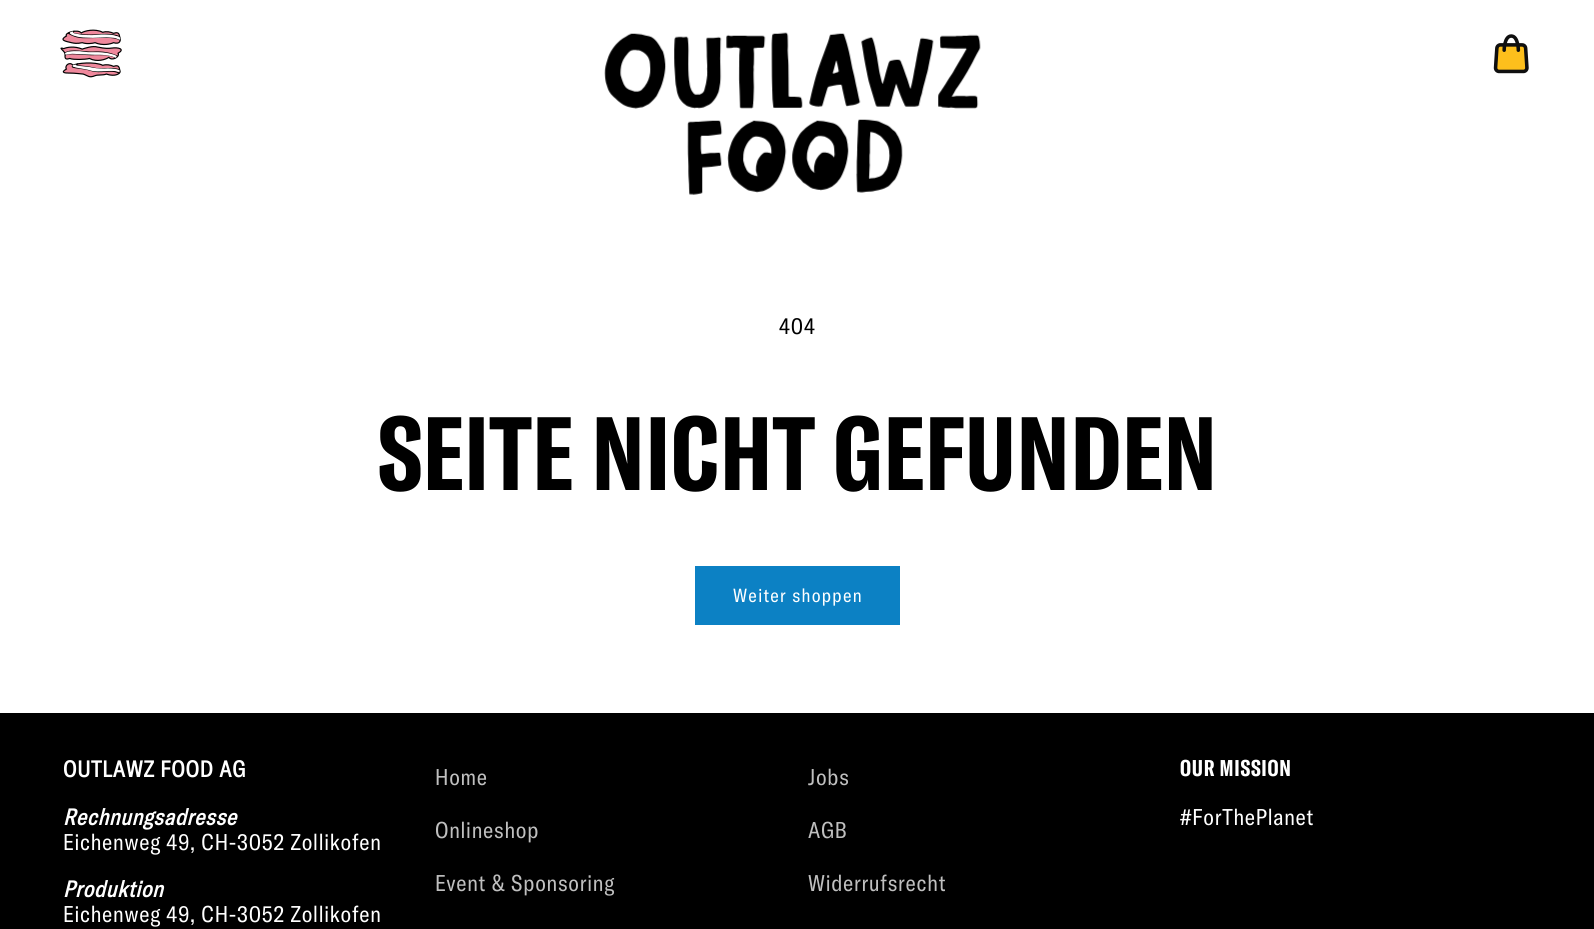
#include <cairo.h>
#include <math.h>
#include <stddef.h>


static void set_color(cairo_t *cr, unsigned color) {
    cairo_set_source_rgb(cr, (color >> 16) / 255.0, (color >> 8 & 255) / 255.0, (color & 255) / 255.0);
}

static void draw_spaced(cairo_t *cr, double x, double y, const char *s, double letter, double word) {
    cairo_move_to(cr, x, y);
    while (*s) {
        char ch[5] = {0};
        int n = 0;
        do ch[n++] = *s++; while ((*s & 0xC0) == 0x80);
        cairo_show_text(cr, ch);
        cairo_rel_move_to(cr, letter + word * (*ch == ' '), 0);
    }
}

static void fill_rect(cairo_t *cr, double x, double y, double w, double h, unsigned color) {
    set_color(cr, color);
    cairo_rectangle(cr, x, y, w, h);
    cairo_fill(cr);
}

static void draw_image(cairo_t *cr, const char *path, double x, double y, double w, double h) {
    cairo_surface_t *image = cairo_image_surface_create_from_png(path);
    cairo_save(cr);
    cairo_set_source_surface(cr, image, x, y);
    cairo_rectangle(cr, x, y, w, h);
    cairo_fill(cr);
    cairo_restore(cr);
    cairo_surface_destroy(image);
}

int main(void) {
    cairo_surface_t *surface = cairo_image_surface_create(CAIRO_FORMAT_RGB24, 1594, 929);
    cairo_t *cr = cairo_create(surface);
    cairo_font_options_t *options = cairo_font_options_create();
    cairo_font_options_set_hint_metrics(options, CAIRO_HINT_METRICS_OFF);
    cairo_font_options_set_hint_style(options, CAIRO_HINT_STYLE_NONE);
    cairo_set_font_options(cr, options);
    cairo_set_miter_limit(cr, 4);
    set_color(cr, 0xFFFFFF);
    cairo_paint(cr);
    draw_image(cr, "assets/img1.png", 60, 29, 62, 49);
    draw_image(cr, "assets/img2.png", 604, 32, 377, 163);
    draw_image(cr, "assets/img3.png", 1493, 34, 36, 40);
    cairo_select_font_face(cr, "GT America", CAIRO_FONT_SLANT_NORMAL, CAIRO_FONT_WEIGHT_NORMAL);
    cairo_set_font_size(cr, 22.5);
    set_color(cr, 0x000000);
    draw_spaced(cr, 779, 334, "404", 0.75, 0);
    cairo_select_font_face(cr, "GT America", CAIRO_FONT_SLANT_NORMAL, CAIRO_FONT_WEIGHT_BOLD);
    cairo_set_font_size(cr, 102.5);
    draw_spaced(cr, 378, 490, "SEITE NICHT GEFUNDEN", 0.75, 0);
    fill_rect(cr, 695, 566, 205, 59, 0x0C81C4);
    cairo_select_font_face(cr, "GT America", CAIRO_FONT_SLANT_NORMAL, CAIRO_FONT_WEIGHT_NORMAL);
    cairo_set_font_size(cr, 18.75);
    set_color(cr, 0xFFFFFF);
    draw_spaced(cr, 733, 602, "Weiter shoppen", 1.25, 0);
    fill_rect(cr, 0, 713, 1594, 216, 0x000000);
    cairo_select_font_face(cr, "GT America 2", CAIRO_FONT_SLANT_NORMAL, CAIRO_FONT_WEIGHT_BOLD);
    cairo_set_font_size(cr, 22.5);
    set_color(cr, 0xFFFFFF);
    draw_spaced(cr, 63, 777, "OUTLAWZ FOOD AG", 0.75, 0);
    cairo_select_font_face(cr, "GT America", CAIRO_FONT_SLANT_ITALIC, CAIRO_FONT_WEIGHT_BOLD);
    draw_spaced(cr, 63, 825, "Rechnungsadresse", 0.75, 0);
    cairo_select_font_face(cr, "GT America", CAIRO_FONT_SLANT_NORMAL, CAIRO_FONT_WEIGHT_NORMAL);
    draw_spaced(cr, 63, 850, "Eichenweg 49, CH-3052 Zollikofen", 0.75, 0);
    cairo_select_font_face(cr, "GT America", CAIRO_FONT_SLANT_ITALIC, CAIRO_FONT_WEIGHT_BOLD);
    draw_spaced(cr, 63, 897, "Produktion", 0.75, 0);
    cairo_select_font_face(cr, "GT America", CAIRO_FONT_SLANT_NORMAL, CAIRO_FONT_WEIGHT_NORMAL);
    draw_spaced(cr, 63, 922, "Eichenweg 49, CH-3052 Zollikofen", 0.75, 0);
    set_color(cr, 0xBFBFBF);
    draw_spaced(cr, 435, 785, "Home", 0.75, 0);
    draw_spaced(cr, 435, 838, "Onlineshop", 0.75, 0);
    draw_spaced(cr, 435, 891, "Event & Sponsoring", 0.75, 0);
    draw_spaced(cr, 808, 785, "Jobs", 0.75, 0);
    draw_spaced(cr, 808, 838, "AGB", 0.75, 0);
    draw_spaced(cr, 808, 891, "Widerrufsrecht", 0.75, 0);
    cairo_select_font_face(cr, "GT America", CAIRO_FONT_SLANT_NORMAL, CAIRO_FONT_WEIGHT_BOLD);
    set_color(cr, 0xFFFFFF);
    draw_spaced(cr, 1180, 776, "OUR MISSION", 0.75, 0);
    cairo_select_font_face(cr, "GT America", CAIRO_FONT_SLANT_NORMAL, CAIRO_FONT_WEIGHT_NORMAL);
    draw_spaced(cr, 1180, 825, "#ForThePlanet", 0.75, 0);
    cairo_surface_write_to_png(surface, "output.png");
    cairo_font_options_destroy(options);
    cairo_destroy(cr);
    cairo_surface_destroy(surface);
    return 0;
}
